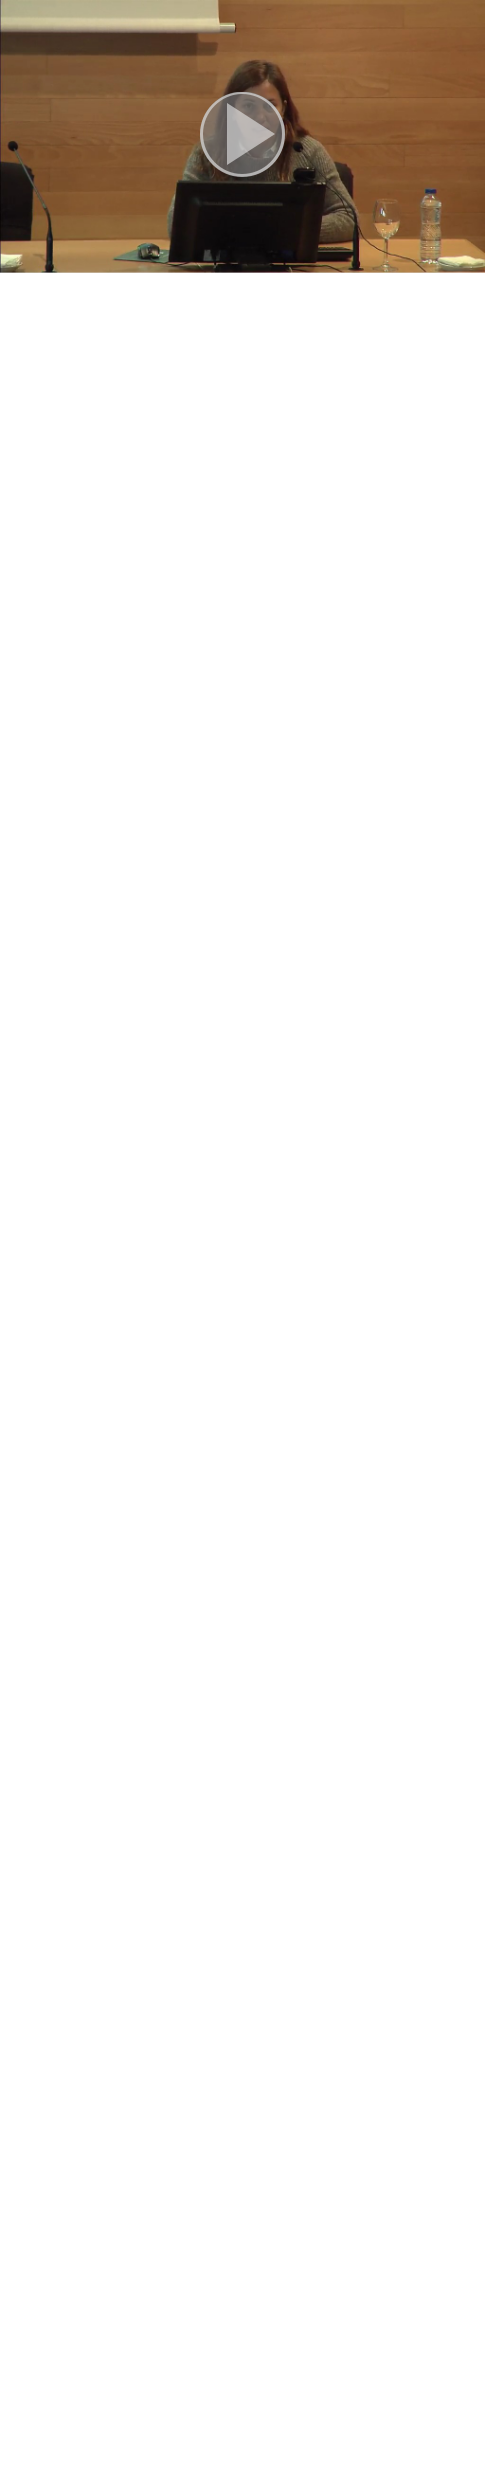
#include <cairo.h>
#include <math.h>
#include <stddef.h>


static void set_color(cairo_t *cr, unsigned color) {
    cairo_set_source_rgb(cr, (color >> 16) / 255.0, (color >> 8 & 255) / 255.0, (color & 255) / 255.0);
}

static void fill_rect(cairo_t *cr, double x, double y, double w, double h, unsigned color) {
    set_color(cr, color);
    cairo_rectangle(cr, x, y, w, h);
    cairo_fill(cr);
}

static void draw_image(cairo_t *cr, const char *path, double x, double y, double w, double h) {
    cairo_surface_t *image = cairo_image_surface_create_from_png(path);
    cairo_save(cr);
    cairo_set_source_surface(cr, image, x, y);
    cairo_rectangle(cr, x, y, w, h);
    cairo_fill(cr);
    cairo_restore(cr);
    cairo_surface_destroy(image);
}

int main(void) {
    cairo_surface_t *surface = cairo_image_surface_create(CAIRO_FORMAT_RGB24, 485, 2490);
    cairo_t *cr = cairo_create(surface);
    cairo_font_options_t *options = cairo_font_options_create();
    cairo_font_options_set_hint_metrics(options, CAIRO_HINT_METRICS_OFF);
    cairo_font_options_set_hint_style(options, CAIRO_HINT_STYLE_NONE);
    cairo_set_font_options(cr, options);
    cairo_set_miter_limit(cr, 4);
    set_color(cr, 0xFFFFFF);
    cairo_paint(cr);
    fill_rect(cr, 0, 272, 485, 1, 0xE4E4E4);
    draw_image(cr, "assets/img1.png", 0, 0, 485, 273);
    cairo_save(cr);
    cairo_rectangle(cr, 200, 92, 85, 85);
    cairo_clip(cr);
    cairo_set_source_rgba(cr, 0.502, 0.502, 0.502, 0.6);
    cairo_arc(cr, 242.5, 134, 42.5, 0, 2 * M_PI);
    cairo_fill(cr);
    cairo_restore(cr);
    cairo_set_source_rgba(cr, 0.922, 0.922, 0.922, 0.6);
    cairo_set_fill_rule(cr, CAIRO_FILL_RULE_EVEN_ODD);
    cairo_new_path(cr);
    cairo_move_to(cr, 242, 92);
    cairo_curve_to(cr, 266, 92, 285, 111, 285, 134);
    cairo_curve_to(cr, 285, 158, 266, 177, 242, 177);
    cairo_curve_to(cr, 219, 177, 200, 158, 200, 134);
    cairo_curve_to(cr, 200, 111, 219, 92, 242, 92);
    cairo_close_path(cr);
    cairo_move_to(cr, 242, 94);
    cairo_curve_to(cr, 264, 94, 282, 112, 282, 134);
    cairo_curve_to(cr, 282, 156, 264, 174, 242, 174);
    cairo_curve_to(cr, 221, 174, 203, 156, 203, 134);
    cairo_curve_to(cr, 203, 112, 221, 94, 242, 94);
    cairo_close_path(cr);
    cairo_fill(cr);
    cairo_new_path(cr);
    cairo_move_to(cr, 275, 134);
    cairo_line_to(cr, 227, 165);
    cairo_line_to(cr, 227, 103);
    cairo_close_path(cr);
    cairo_fill(cr);
    cairo_surface_write_to_png(surface, "output.png");
    cairo_font_options_destroy(options);
    cairo_destroy(cr);
    cairo_surface_destroy(surface);
    return 0;
}
